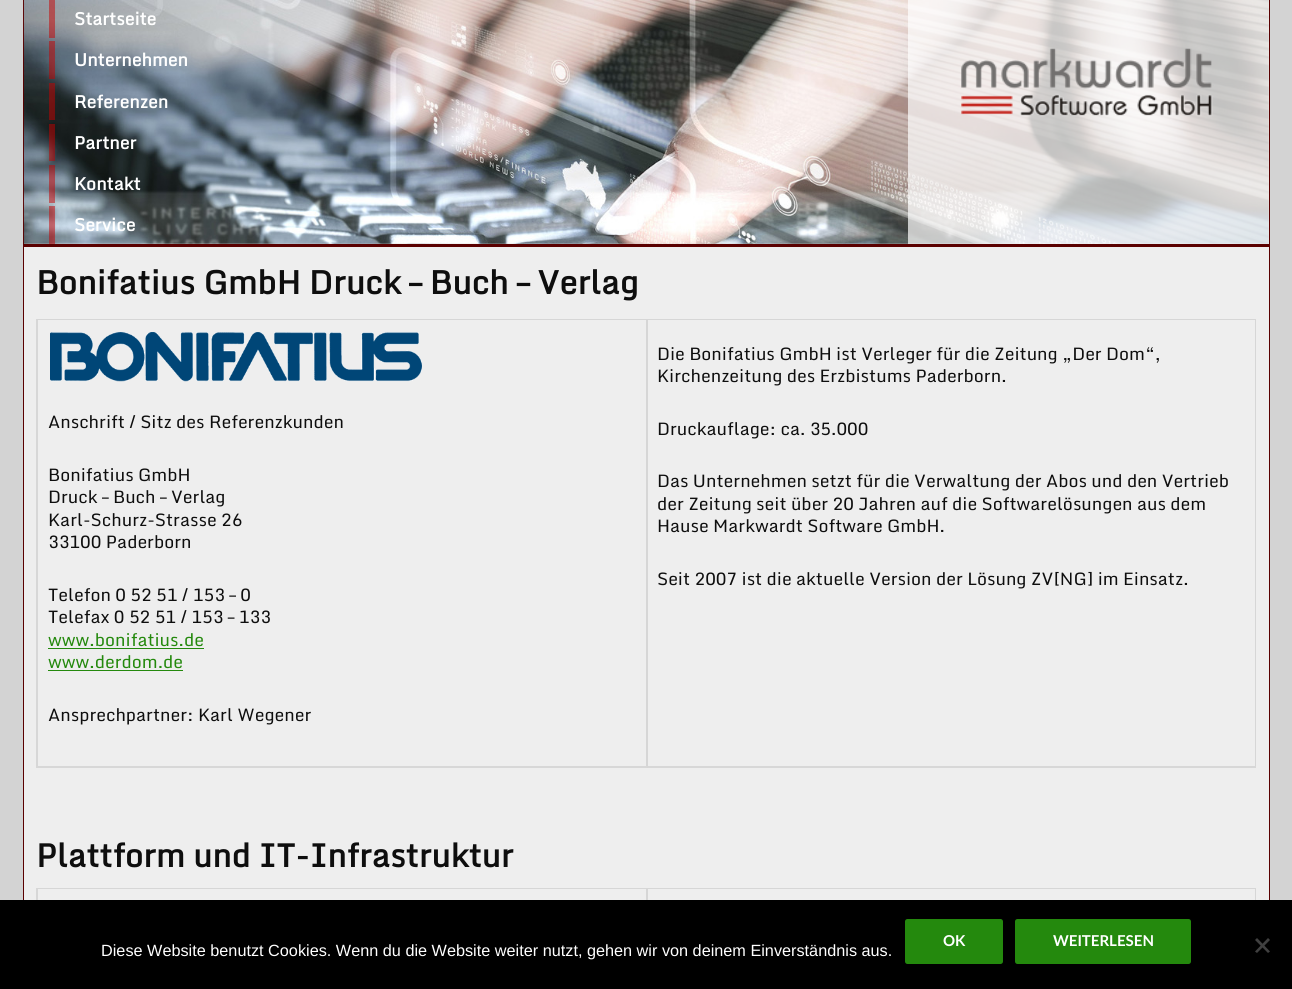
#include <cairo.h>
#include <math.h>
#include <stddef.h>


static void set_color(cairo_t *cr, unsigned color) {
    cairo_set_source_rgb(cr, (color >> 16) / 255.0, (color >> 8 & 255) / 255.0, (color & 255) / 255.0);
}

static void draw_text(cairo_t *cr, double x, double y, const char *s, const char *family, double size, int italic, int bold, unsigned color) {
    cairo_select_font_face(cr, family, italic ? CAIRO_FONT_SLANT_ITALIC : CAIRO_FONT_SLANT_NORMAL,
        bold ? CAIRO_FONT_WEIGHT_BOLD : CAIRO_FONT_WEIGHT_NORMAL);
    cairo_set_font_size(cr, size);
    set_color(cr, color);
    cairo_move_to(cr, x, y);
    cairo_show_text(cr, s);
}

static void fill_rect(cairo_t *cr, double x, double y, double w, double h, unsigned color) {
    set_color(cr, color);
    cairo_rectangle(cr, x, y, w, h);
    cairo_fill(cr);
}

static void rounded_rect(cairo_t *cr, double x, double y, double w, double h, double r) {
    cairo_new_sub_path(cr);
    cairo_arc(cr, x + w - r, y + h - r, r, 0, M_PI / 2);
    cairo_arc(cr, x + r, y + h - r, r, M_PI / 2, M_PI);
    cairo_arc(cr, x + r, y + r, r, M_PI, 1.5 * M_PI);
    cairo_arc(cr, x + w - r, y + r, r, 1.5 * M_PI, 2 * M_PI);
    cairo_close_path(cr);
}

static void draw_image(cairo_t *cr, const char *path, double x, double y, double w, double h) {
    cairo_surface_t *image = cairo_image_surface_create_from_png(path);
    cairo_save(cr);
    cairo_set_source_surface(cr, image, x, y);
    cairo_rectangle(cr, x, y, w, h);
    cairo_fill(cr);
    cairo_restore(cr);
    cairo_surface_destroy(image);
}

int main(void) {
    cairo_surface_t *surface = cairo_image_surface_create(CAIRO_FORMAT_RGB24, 1292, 989);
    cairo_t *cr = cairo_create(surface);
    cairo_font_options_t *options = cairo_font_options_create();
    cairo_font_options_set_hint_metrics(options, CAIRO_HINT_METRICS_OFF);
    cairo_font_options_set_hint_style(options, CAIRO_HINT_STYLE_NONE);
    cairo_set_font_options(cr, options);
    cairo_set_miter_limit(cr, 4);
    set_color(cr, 0xD3D3D3);
    cairo_paint(cr);
    fill_rect(cr, 1269, 0, 1, 244, 0x5A0000);
    fill_rect(cr, 23, 0, 1, 244, 0x5A0000);
    draw_image(cr, "assets/img1.png", 23, 0, 1246, 244);
    cairo_set_source_rgba(cr, 0.784, 0, 0, 0.5);
    cairo_rectangle(cr, 49, 0, 6, 38);
    cairo_fill(cr);
    draw_text(cr, 74, 25, "Startseite", "Monda", 17.5, 0, 1, 0xFFFFFF);
    cairo_set_source_rgba(cr, 0.784, 0, 0, 0.5);
    cairo_rectangle(cr, 49, 41, 6, 38);
    cairo_fill(cr);
    draw_text(cr, 74, 66, "Unternehmen", "Monda", 17.5, 0, 1, 0xFFFFFF);
    cairo_set_source_rgba(cr, 0.784, 0, 0, 0.5);
    cairo_rectangle(cr, 49, 83, 6, 37);
    cairo_fill(cr);
    draw_text(cr, 74, 108, "Referenzen", "Monda", 17.5, 0, 1, 0xFFFFFF);
    cairo_set_source_rgba(cr, 0.784, 0, 0, 0.5);
    cairo_rectangle(cr, 49, 124, 6, 37);
    cairo_fill(cr);
    draw_text(cr, 74, 149, "Partner", "Monda", 17.5, 0, 1, 0xFFFFFF);
    cairo_set_source_rgba(cr, 0.784, 0, 0, 0.5);
    cairo_rectangle(cr, 49, 165, 6, 38);
    cairo_fill(cr);
    draw_text(cr, 74, 190, "Kontakt", "Monda", 17.5, 0, 1, 0xFFFFFF);
    cairo_set_source_rgba(cr, 0.784, 0, 0, 0.5);
    cairo_rectangle(cr, 49, 206, 6, 38);
    cairo_fill(cr);
    draw_text(cr, 74, 231, "Service", "Monda", 17.5, 0, 1, 0xFFFFFF);
    cairo_set_source_rgba(cr, 1, 1, 1, 0.7);
    cairo_rectangle(cr, 908, 0, 361, 244);
    cairo_fill(cr);
    draw_image(cr, "assets/img2.png", 961, 48, 252, 69);
    fill_rect(cr, 24, 247, 1245, 653, 0xEEEEEE);
    fill_rect(cr, 23, 244, 1247, 3, 0x5A0000);
    fill_rect(cr, 1269, 244, 1, 656, 0x5A0000);
    fill_rect(cr, 23, 244, 1, 656, 0x5A0000);
    draw_text(cr, 36, 294, "Bonifatius GmbH Druck – Buch – Verlag", "Monda", 32.5, 0, 1, 0x0E0E0E);
    set_color(cr, 0xD6D6D6);
    cairo_new_path(cr);
    cairo_move_to(cr, 36, 319);
    cairo_line_to(cr, 1256, 319);
    cairo_line_to(cr, 1256, 320);
    cairo_line_to(cr, 38, 320);
    cairo_close_path(cr);
    cairo_fill(cr);
    cairo_set_source_rgba(cr, 0, 0, 0, 0.1);
    cairo_new_path(cr);
    cairo_move_to(cr, 36, 768);
    cairo_line_to(cr, 36, 319);
    cairo_line_to(cr, 38, 320);
    cairo_line_to(cr, 38, 768);
    cairo_close_path(cr);
    cairo_fill(cr);
    set_color(cr, 0xD6D6D6);
    cairo_new_path(cr);
    cairo_move_to(cr, 648, 320);
    cairo_line_to(cr, 648, 768);
    cairo_line_to(cr, 646, 766);
    cairo_line_to(cr, 646, 320);
    cairo_close_path(cr);
    cairo_fill(cr);
    cairo_set_source_rgba(cr, 0, 0, 0, 0.1);
    cairo_new_path(cr);
    cairo_move_to(cr, 648, 768);
    cairo_line_to(cr, 38, 768);
    cairo_line_to(cr, 38, 766);
    cairo_line_to(cr, 646, 766);
    cairo_close_path(cr);
    cairo_fill(cr);
    draw_image(cr, "assets/img3.png", 50, 332, 372, 50);
    draw_text(cr, 48, 428, "Anschrift / Sitz des Referenzkunden", "Monda", 17.5, 0, 0, 0x0E0E0E);
    draw_text(cr, 48, 481, "Bonifatius GmbH", "Monda", 17.5, 0, 0, 0x0E0E0E);
    draw_text(cr, 48, 503, "Druck – Buch – Verlag", "Monda", 17.5, 0, 0, 0x0E0E0E);
    draw_text(cr, 48, 526, "Karl-Schurz-Strasse 26", "Monda", 17.5, 0, 0, 0x0E0E0E);
    draw_text(cr, 48, 548, "33100 Paderborn", "Monda", 17.5, 0, 0, 0x0E0E0E);
    draw_text(cr, 48, 601, "Telefon 0 52 51 / 153 – 0", "Monda", 17.5, 0, 0, 0x0E0E0E);
    draw_text(cr, 48, 623, "Telefax 0 52 51 / 153 – 133", "Monda", 17.5, 0, 0, 0x0E0E0E);
    draw_text(cr, 48, 646, "www.bonifatius.de", "Monda", 17.5, 0, 0, 0x24890D);
    fill_rect(cr, 48, 648, 156, 1, 0x24890D);
    draw_text(cr, 48, 668, "www.derdom.de", "Monda", 17.5, 0, 0, 0x24890D);
    fill_rect(cr, 48, 670, 135, 1, 0x24890D);
    draw_text(cr, 48, 721, "Ansprechpartner: Karl Wegener", "Monda", 17.5, 0, 0, 0x0E0E0E);
    set_color(cr, 0xD6D6D6);
    cairo_new_path(cr);
    cairo_move_to(cr, 1256, 320);
    cairo_line_to(cr, 1256, 768);
    cairo_line_to(cr, 1255, 766);
    cairo_line_to(cr, 1255, 320);
    cairo_close_path(cr);
    cairo_fill(cr);
    cairo_set_source_rgba(cr, 0, 0, 0, 0.1);
    cairo_new_path(cr);
    cairo_move_to(cr, 1256, 768);
    cairo_line_to(cr, 648, 768);
    cairo_line_to(cr, 648, 766);
    cairo_line_to(cr, 1255, 766);
    cairo_close_path(cr);
    cairo_fill(cr);
    draw_text(cr, 657, 360, "Die Bonifatius GmbH ist Verleger für die Zeitung „Der Dom“,", "Monda", 17.5, 0, 0, 0x0E0E0E);
    draw_text(cr, 657, 382, "Kirchenzeitung des Erzbistums Paderborn.", "Monda", 17.5, 0, 0, 0x0E0E0E);
    draw_text(cr, 657, 435, "Druckauflage: ca. 35.000", "Monda", 17.5, 0, 0, 0x0E0E0E);
    draw_text(cr, 657, 487, "Das Unternehmen setzt für die Verwaltung der Abos und den Vertrieb", "Monda", 17.5, 0, 0, 0x0E0E0E);
    draw_text(cr, 657, 510, "der Zeitung seit über 20 Jahren auf die Softwarelösungen aus dem", "Monda", 17.5, 0, 0, 0x0E0E0E);
    draw_text(cr, 657, 532, "Hause Markwardt Software GmbH.", "Monda", 17.5, 0, 0, 0x0E0E0E);
    draw_text(cr, 657, 585, "Seit 2007 ist die aktuelle Version der Lösung ZV[NG] im Einsatz.", "Monda", 17.5, 0, 0, 0x0E0E0E);
    draw_text(cr, 36, 867, "Plattform und IT-Infrastruktur", "Monda", 32.2, 0, 1, 0x0E0E0E);
    set_color(cr, 0xD6D6D6);
    cairo_new_path(cr);
    cairo_move_to(cr, 36, 888);
    cairo_line_to(cr, 1256, 888);
    cairo_line_to(cr, 1256, 889);
    cairo_line_to(cr, 38, 889);
    cairo_close_path(cr);
    cairo_fill(cr);
    cairo_set_source_rgba(cr, 0, 0, 0, 0.1);
    cairo_new_path(cr);
    cairo_move_to(cr, 36, 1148);
    cairo_line_to(cr, 36, 888);
    cairo_line_to(cr, 38, 889);
    cairo_line_to(cr, 38, 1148);
    cairo_close_path(cr);
    cairo_fill(cr);
    set_color(cr, 0xD6D6D6);
    cairo_new_path(cr);
    cairo_move_to(cr, 648, 889);
    cairo_line_to(cr, 648, 932);
    cairo_line_to(cr, 646, 931);
    cairo_line_to(cr, 646, 889);
    cairo_close_path(cr);
    cairo_fill(cr);
    cairo_new_path(cr);
    cairo_move_to(cr, 1256, 889);
    cairo_line_to(cr, 1256, 932);
    cairo_line_to(cr, 1255, 931);
    cairo_line_to(cr, 1255, 889);
    cairo_close_path(cr);
    cairo_fill(cr);
    fill_rect(cr, 0, 900, 1292, 89, 0x000000);
    draw_text(cr, 101, 956, "Diese Website benutzt Cookies. Wenn du die Website weiter nutzt, gehen wir von deinem Einverständnis aus.", "Liberation Sans", 16.25, 0, 0, 0xFFFFFF);
    set_color(cr, 0x24890D);
    rounded_rect(cr, 905, 919, 98, 45, 2.5);
    cairo_fill(cr);
    draw_text(cr, 943, 946, "OK", "Lato", 15, 0, 1, 0xFFFFFF);
    set_color(cr, 0x24890D);
    rounded_rect(cr, 1015, 919, 176, 45, 2.5);
    cairo_fill(cr);
    draw_text(cr, 1053, 946, "WEITERLESEN", "Lato", 15, 0, 1, 0xFFFFFF);
    set_color(cr, 0x404040);
    cairo_new_path(cr);
    cairo_move_to(cr, 1268, 938);
    cairo_line_to(cr, 1270, 940);
    cairo_line_to(cr, 1257, 953);
    cairo_line_to(cr, 1255, 951.5);
    cairo_close_path(cr);
    cairo_fill(cr);
    cairo_new_path(cr);
    cairo_move_to(cr, 1255, 940);
    cairo_line_to(cr, 1257, 938);
    cairo_line_to(cr, 1270, 951.5);
    cairo_line_to(cr, 1268, 953);
    cairo_close_path(cr);
    cairo_fill(cr);
    cairo_surface_write_to_png(surface, "output.png");
    cairo_font_options_destroy(options);
    cairo_destroy(cr);
    cairo_surface_destroy(surface);
    return 0;
}
